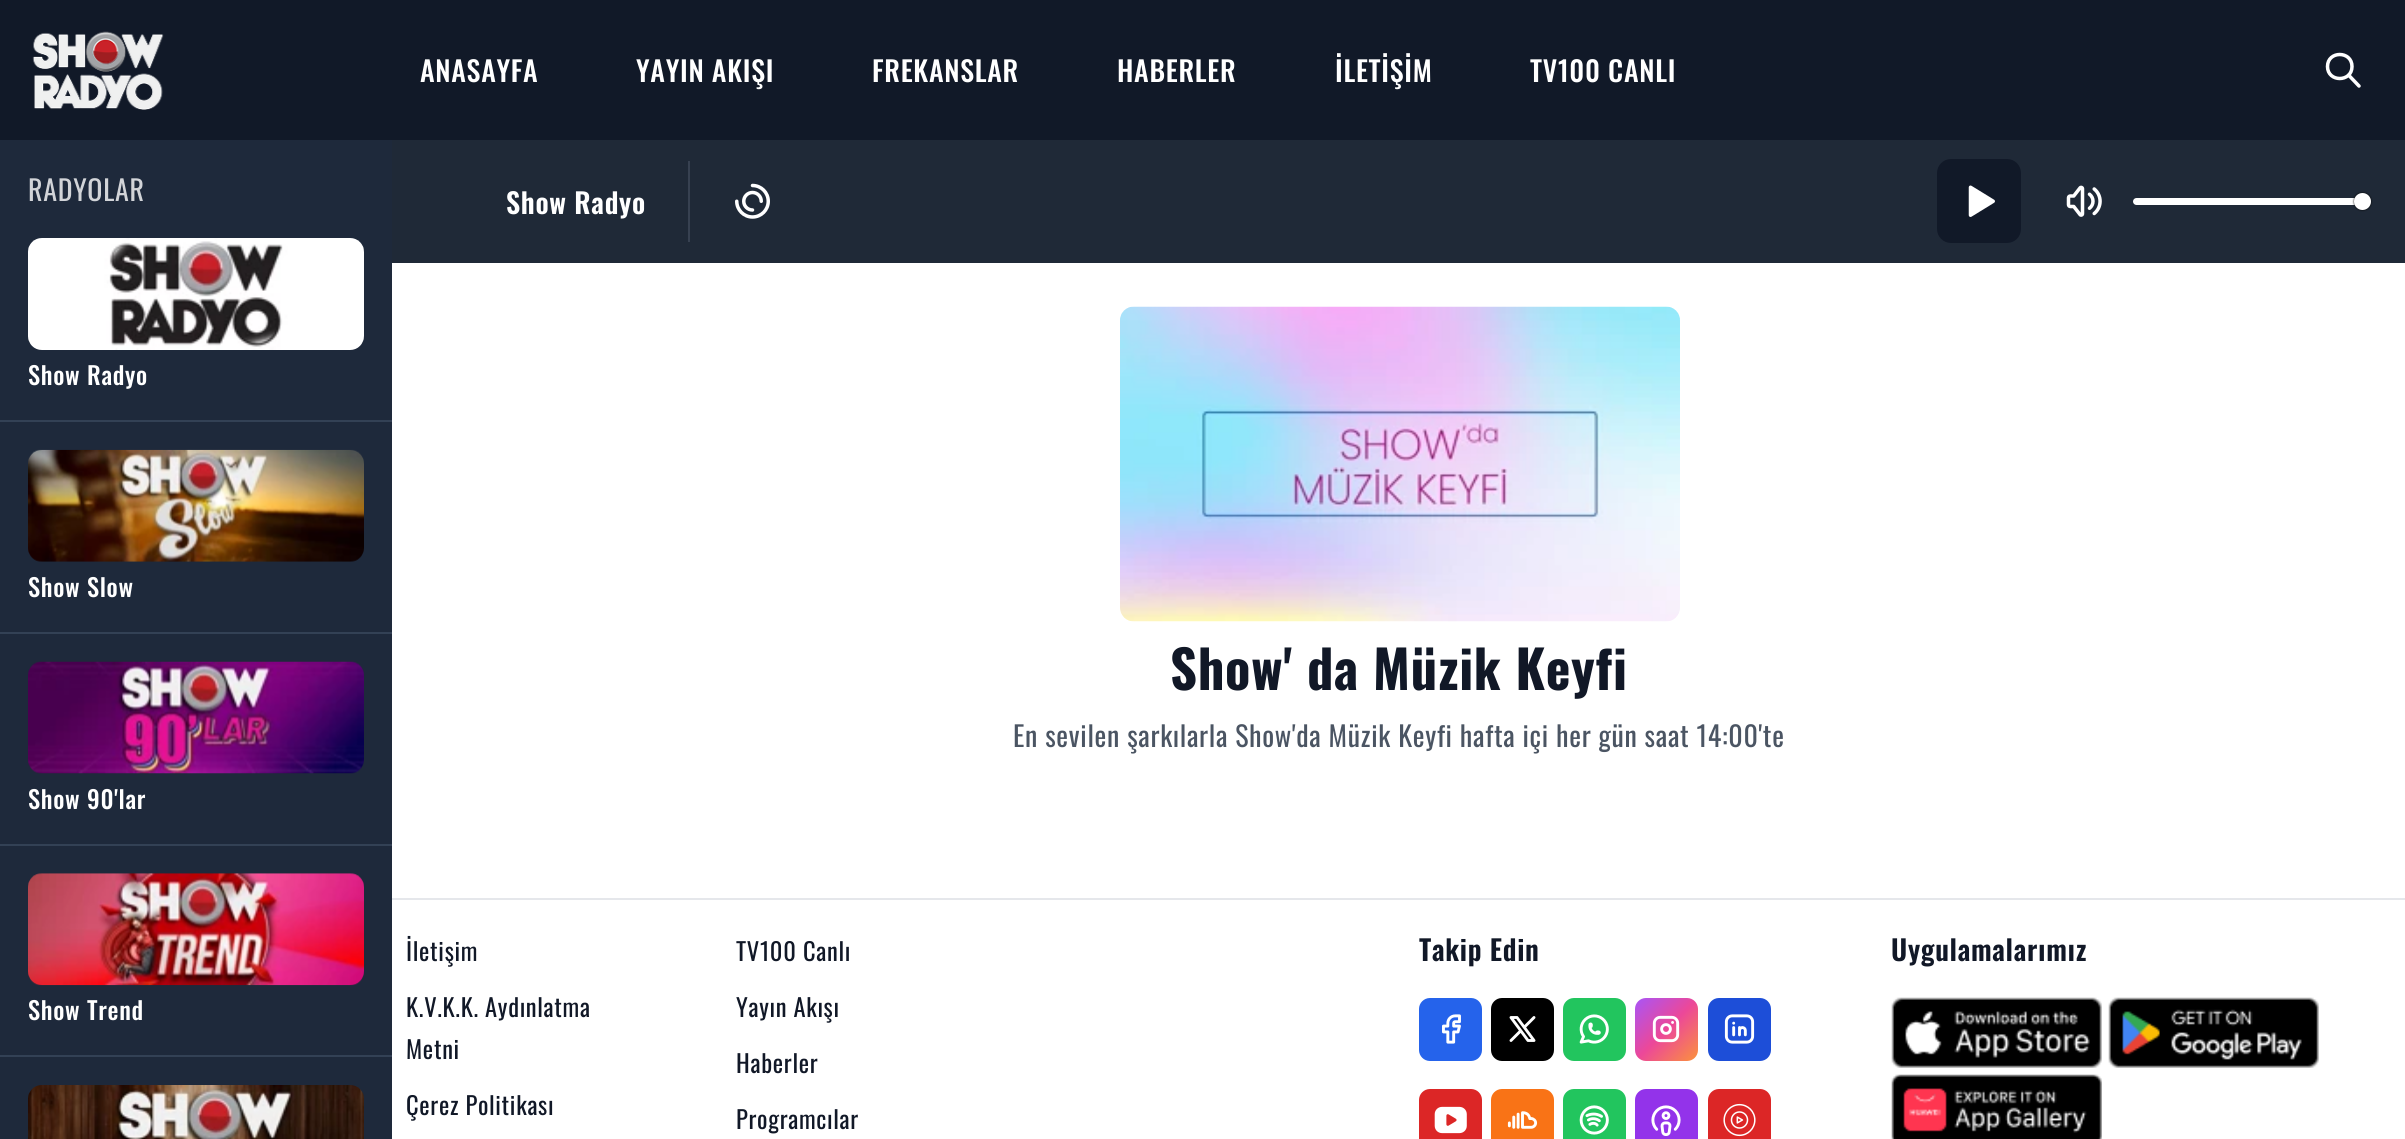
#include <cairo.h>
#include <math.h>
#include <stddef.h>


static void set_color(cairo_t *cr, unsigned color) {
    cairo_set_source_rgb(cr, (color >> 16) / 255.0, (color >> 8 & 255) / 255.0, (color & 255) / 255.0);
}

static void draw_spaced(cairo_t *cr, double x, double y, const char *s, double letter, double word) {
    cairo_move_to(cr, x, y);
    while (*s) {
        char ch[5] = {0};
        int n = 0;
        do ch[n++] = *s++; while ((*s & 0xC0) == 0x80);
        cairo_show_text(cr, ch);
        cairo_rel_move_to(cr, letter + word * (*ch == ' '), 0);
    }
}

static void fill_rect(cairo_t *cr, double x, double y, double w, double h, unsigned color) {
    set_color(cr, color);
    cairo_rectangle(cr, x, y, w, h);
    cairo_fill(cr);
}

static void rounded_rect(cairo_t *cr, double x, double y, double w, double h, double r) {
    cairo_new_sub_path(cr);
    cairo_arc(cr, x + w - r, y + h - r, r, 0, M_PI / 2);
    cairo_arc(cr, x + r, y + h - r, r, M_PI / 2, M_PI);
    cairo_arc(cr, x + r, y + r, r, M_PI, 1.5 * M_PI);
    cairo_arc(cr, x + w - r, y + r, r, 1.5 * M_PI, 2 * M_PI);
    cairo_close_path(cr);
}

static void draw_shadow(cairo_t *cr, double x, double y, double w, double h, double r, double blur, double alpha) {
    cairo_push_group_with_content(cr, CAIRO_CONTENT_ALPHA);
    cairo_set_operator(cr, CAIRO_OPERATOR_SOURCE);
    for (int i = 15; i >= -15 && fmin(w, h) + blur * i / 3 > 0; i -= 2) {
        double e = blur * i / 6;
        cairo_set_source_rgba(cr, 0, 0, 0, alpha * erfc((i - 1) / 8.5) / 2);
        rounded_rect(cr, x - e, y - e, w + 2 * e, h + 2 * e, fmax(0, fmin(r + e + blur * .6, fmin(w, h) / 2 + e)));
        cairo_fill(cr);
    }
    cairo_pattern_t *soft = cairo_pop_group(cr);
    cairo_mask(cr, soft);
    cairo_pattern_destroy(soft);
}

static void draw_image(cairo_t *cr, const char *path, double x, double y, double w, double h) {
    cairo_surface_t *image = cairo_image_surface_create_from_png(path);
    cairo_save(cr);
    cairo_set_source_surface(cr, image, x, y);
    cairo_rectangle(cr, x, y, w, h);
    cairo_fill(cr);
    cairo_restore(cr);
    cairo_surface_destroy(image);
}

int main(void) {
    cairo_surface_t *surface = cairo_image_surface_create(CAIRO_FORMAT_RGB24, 2405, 1139);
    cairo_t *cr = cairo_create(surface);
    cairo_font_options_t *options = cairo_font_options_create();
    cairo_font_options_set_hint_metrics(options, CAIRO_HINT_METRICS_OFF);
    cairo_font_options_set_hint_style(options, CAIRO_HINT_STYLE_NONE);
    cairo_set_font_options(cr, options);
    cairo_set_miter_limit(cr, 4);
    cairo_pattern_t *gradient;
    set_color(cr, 0xFFFFFF);
    cairo_paint(cr);
    fill_rect(cr, 0, 0, 2405, 140, 0x111928);
    draw_image(cr, "assets/img1.png", 32, 31, 132, 79);
    cairo_select_font_face(cr, "Oswald Medium", CAIRO_FONT_SLANT_NORMAL, CAIRO_FONT_WEIGHT_NORMAL);
    cairo_set_font_size(cr, 28);
    set_color(cr, 0xFFFFFF);
    draw_spaced(cr, 420, 82, "ANASAYFA", 0.7, 0);
    draw_spaced(cr, 636, 82, "YAYIN AKIŞI", 0.7, 0);
    draw_spaced(cr, 872, 82, "FREKANSLAR", 0.7, 0);
    draw_spaced(cr, 1117, 82, "HABERLER", 0.7, 0);
    draw_spaced(cr, 1335, 82, "İLETİŞİM", 0.7, 0);
    draw_spaced(cr, 1530, 82, "TV100 CANLI", 0.7, 0);
    cairo_new_path(cr);
    cairo_move_to(cr, 2327.5, 66.5);
    cairo_curve_to(cr, 2327.5, 82.5, 2352, 82.5, 2352, 66.5);
    cairo_curve_to(cr, 2352, 50.5, 2327.5, 50.5, 2327.5, 66.5);
    cairo_move_to(cr, 2359, 86);
    cairo_line_to(cr, 2348.5, 75);
    cairo_set_line_width(cr, 3.5);
    cairo_set_line_cap(cr, CAIRO_LINE_CAP_ROUND);
    cairo_set_line_join(cr, CAIRO_LINE_JOIN_ROUND);
    cairo_stroke(cr);
    fill_rect(cr, 0, 140, 392, 999, 0x1E293B);
    cairo_select_font_face(cr, "Oswald", CAIRO_FONT_SLANT_NORMAL, CAIRO_FONT_WEIGHT_NORMAL);
    set_color(cr, 0xD2D4D8);
    draw_spaced(cr, 28, 201, "RADYOLAR", 0.7, 0);
    fill_rect(cr, 0, 420, 392, 2, 0x334155);
    draw_image(cr, "assets/img2.png", 28, 238, 336, 112);
    cairo_select_font_face(cr, "Oswald Medium", CAIRO_FONT_SLANT_NORMAL, CAIRO_FONT_WEIGHT_NORMAL);
    cairo_set_font_size(cr, 24.5);
    set_color(cr, 0xFFFFFF);
    draw_spaced(cr, 28, 385, "Show Radyo", 0.7, 0);
    fill_rect(cr, 0, 632, 392, 2, 0x334155);
    draw_image(cr, "assets/img3.png", 28, 449, 336, 113);
    set_color(cr, 0xFFFFFF);
    draw_spaced(cr, 28, 597, "Show Slow", 0.7, 0);
    fill_rect(cr, 0, 844, 392, 2, 0x334155);
    draw_image(cr, "assets/img4.png", 28, 661, 336, 113);
    set_color(cr, 0xFFFFFF);
    draw_spaced(cr, 28, 809, "Show 90'lar", 0.7, 0);
    fill_rect(cr, 0, 1055, 392, 2, 0x334155);
    draw_image(cr, "assets/img5.png", 28, 873, 336, 113);
    set_color(cr, 0xFFFFFF);
    draw_spaced(cr, 28, 1020, "Show Trend", 0.7, 0);
    draw_image(cr, "assets/img6.png", 28, 1085, 336, 54);
    fill_rect(cr, 392, 140, 2013, 123, 0x1F2937);
    cairo_select_font_face(cr, "Oswald SemiBold", CAIRO_FONT_SLANT_NORMAL, CAIRO_FONT_WEIGHT_NORMAL);
    cairo_set_font_size(cr, 28);
    set_color(cr, 0xFFFFFF);
    draw_spaced(cr, 506, 214, "Show Radyo", 0.7, 0);
    fill_rect(cr, 688, 161, 2, 81, 0x374151);
    draw_image(cr, "assets/img7.png", 735, 183, 35, 36);
    set_color(cr, 0x111928);
    rounded_rect(cr, 1937, 159, 84, 84, 14);
    cairo_fill(cr);
    draw_image(cr, "assets/img8.png", 1968, 185, 27, 32);
    draw_image(cr, "assets/img9.png", 2066, 185, 36, 32);
    set_color(cr, 0xFFFFFF);
    rounded_rect(cr, 2133, 198, 238, 7, 3.5);
    cairo_fill(cr);
    set_color(cr, 0x000000);
    draw_shadow(cr, 2354, 193, 17, 17, 8.5, 1, 1);
    set_color(cr, 0xFFFFFF);
    cairo_arc(cr, 2362.5, 201.5, 8.5, 0, 2 * M_PI);
    cairo_fill(cr);
    draw_image(cr, "assets/img10.png", 1120, 306, 560, 316);
    cairo_select_font_face(cr, "Oswald", CAIRO_FONT_SLANT_NORMAL, CAIRO_FONT_WEIGHT_BOLD);
    cairo_set_font_size(cr, 52.5);
    set_color(cr, 0x111827);
    draw_spaced(cr, 1170, 690, "Show' da Müzik Keyfi", 0.7, 0);
    cairo_select_font_face(cr, "Oswald", CAIRO_FONT_SLANT_NORMAL, CAIRO_FONT_WEIGHT_NORMAL);
    cairo_set_font_size(cr, 28);
    set_color(cr, 0x4B5563);
    draw_spaced(cr, 1013, 747, "En sevilen şarkılarla Show'da Müzik Keyfi hafta içi her gün saat 14:00'te", 0.7, 0);
    fill_rect(cr, 392, 898, 2013, 2, 0xE5E7EB);
    cairo_set_font_size(cr, 24.5);
    set_color(cr, 0x111827);
    draw_spaced(cr, 406, 961, "İletişim", 0.7, 0);
    draw_spaced(cr, 406, 1017, "K.V.K.K. Aydınlatma", 0.7, 0);
    draw_spaced(cr, 406, 1059, "Metni", 0.7, 0);
    draw_spaced(cr, 406, 1115, "Çerez Politikası", 0.7, 0);
    draw_spaced(cr, 736, 961, "TV100 Canlı", 0.7, 0);
    draw_spaced(cr, 736, 1017, "Yayın Akışı", 0.7, 0);
    draw_spaced(cr, 736, 1073, "Haberler", 0.7, 0);
    draw_spaced(cr, 736, 1129, "Programcılar", 0.7, 0);
    cairo_select_font_face(cr, "Oswald SemiBold", CAIRO_FONT_SLANT_NORMAL, CAIRO_FONT_WEIGHT_NORMAL);
    cairo_set_font_size(cr, 28);
    draw_spaced(cr, 1419, 961, "Takip Edin", 0.7, 0);
    set_color(cr, 0x2563EB);
    rounded_rect(cr, 1419, 998, 63, 63, 11);
    cairo_fill(cr);
    draw_image(cr, "assets/img11.png", 1442, 1014, 19, 30);
    set_color(cr, 0x000000);
    rounded_rect(cr, 1491, 998, 63, 63, 11);
    cairo_fill(cr);
    cairo_new_path(cr);
    cairo_move_to(cr, 1511, 1017.5);
    cairo_line_to(cr, 1528, 1040.5);
    cairo_line_to(cr, 1534, 1040.5);
    cairo_line_to(cr, 1517, 1017.5);
    cairo_close_path(cr);
    cairo_move_to(cr, 1511, 1040.5);
    cairo_line_to(cr, 1520.5, 1031);
    cairo_move_to(cr, 1524.5, 1027);
    cairo_line_to(cr, 1534, 1017.5);
    set_color(cr, 0xFFFFFF);
    cairo_set_line_width(cr, 2.9);
    cairo_stroke(cr);
    set_color(cr, 0x22C55E);
    rounded_rect(cr, 1563, 998, 63, 63, 11);
    cairo_fill(cr);
    draw_image(cr, "assets/img12.png", 1579, 1014, 30, 30);
    gradient = cairo_pattern_create_linear(1635, 998, 1698, 1061);
    cairo_pattern_add_color_stop_rgba(gradient, 0, 0.659, 0.333, 0.969, 1);
    cairo_pattern_add_color_stop_rgba(gradient, 0.5, 0.925, 0.282, 0.6, 1);
    cairo_pattern_add_color_stop_rgba(gradient, 1, 0.984, 0.573, 0.235, 1);
    cairo_set_source(cr, gradient);
    cairo_pattern_destroy(gradient);
    rounded_rect(cr, 1635, 998, 63, 63, 11);
    cairo_fill(cr);
    draw_image(cr, "assets/img13.png", 1652, 1015, 28, 28);
    set_color(cr, 0x1D4ED8);
    rounded_rect(cr, 1708, 998, 63, 63, 11);
    cairo_fill(cr);
    draw_image(cr, "assets/img14.png", 1724, 1014, 31, 30);
    set_color(cr, 0xDC2626);
    rounded_rect(cr, 1419, 1089, 63, 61, 11);
    cairo_fill(cr);
    draw_image(cr, "assets/img15.png", 1434, 1106, 33, 28);
    set_color(cr, 0xF97316);
    rounded_rect(cr, 1491, 1089, 63, 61, 11);
    cairo_fill(cr);
    draw_image(cr, "assets/img16.png", 1507, 1111, 31, 18);
    set_color(cr, 0x22C55E);
    rounded_rect(cr, 1563, 1089, 63, 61, 11);
    cairo_fill(cr);
    draw_image(cr, "assets/img17.png", 1579, 1105, 30, 30);
    set_color(cr, 0x9333EA);
    rounded_rect(cr, 1635, 1089, 63, 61, 11);
    cairo_fill(cr);
    draw_image(cr, "assets/img18.png", 1651, 1105, 30, 31);
    set_color(cr, 0xDC2626);
    rounded_rect(cr, 1708, 1089, 63, 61, 11);
    cairo_fill(cr);
    draw_image(cr, "assets/img19.png", 1723, 1103, 33, 34);
    set_color(cr, 0x111827);
    draw_spaced(cr, 1891, 961, "Uygulamalarımız", 0.7, 0);
    draw_image(cr, "assets/img20.png", 1891, 997, 211, 71);
    draw_image(cr, "assets/img21.png", 2108, 997, 211, 71);
    draw_image(cr, "assets/img22.png", 1891, 1074, 211, 65);
    cairo_surface_write_to_png(surface, "output.png");
    cairo_font_options_destroy(options);
    cairo_destroy(cr);
    cairo_surface_destroy(surface);
    return 0;
}
